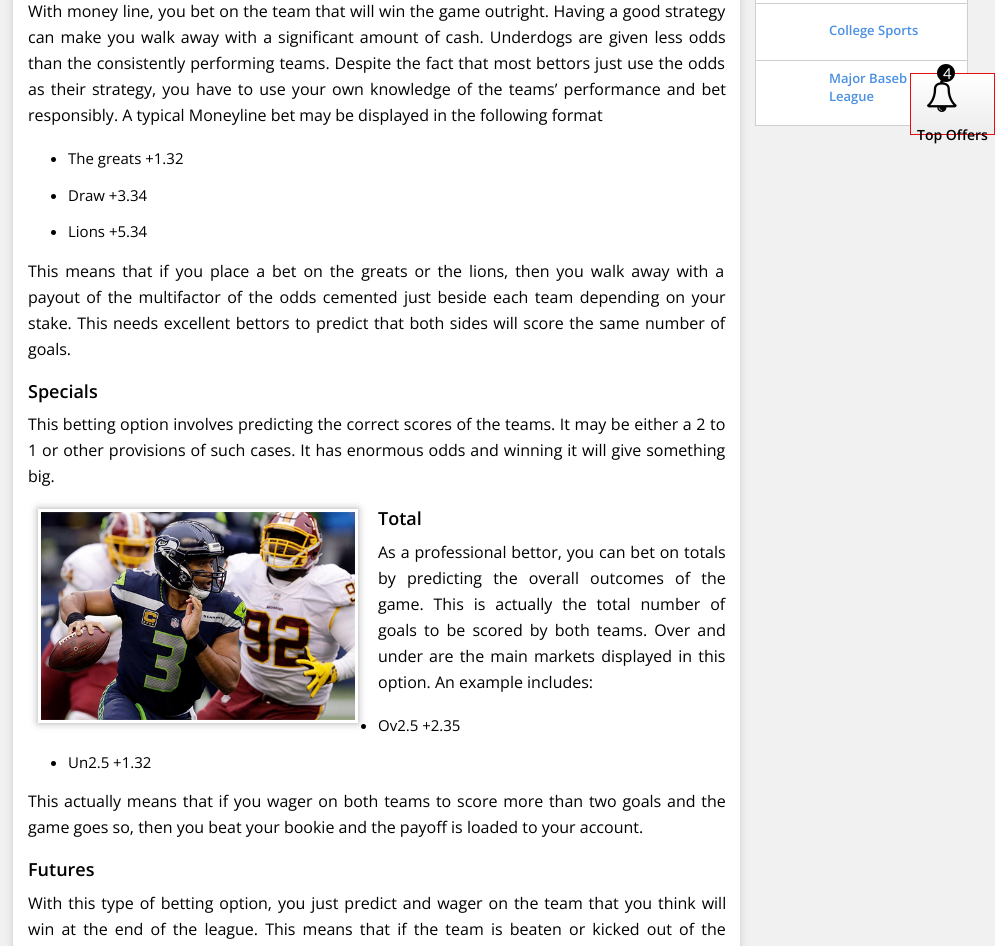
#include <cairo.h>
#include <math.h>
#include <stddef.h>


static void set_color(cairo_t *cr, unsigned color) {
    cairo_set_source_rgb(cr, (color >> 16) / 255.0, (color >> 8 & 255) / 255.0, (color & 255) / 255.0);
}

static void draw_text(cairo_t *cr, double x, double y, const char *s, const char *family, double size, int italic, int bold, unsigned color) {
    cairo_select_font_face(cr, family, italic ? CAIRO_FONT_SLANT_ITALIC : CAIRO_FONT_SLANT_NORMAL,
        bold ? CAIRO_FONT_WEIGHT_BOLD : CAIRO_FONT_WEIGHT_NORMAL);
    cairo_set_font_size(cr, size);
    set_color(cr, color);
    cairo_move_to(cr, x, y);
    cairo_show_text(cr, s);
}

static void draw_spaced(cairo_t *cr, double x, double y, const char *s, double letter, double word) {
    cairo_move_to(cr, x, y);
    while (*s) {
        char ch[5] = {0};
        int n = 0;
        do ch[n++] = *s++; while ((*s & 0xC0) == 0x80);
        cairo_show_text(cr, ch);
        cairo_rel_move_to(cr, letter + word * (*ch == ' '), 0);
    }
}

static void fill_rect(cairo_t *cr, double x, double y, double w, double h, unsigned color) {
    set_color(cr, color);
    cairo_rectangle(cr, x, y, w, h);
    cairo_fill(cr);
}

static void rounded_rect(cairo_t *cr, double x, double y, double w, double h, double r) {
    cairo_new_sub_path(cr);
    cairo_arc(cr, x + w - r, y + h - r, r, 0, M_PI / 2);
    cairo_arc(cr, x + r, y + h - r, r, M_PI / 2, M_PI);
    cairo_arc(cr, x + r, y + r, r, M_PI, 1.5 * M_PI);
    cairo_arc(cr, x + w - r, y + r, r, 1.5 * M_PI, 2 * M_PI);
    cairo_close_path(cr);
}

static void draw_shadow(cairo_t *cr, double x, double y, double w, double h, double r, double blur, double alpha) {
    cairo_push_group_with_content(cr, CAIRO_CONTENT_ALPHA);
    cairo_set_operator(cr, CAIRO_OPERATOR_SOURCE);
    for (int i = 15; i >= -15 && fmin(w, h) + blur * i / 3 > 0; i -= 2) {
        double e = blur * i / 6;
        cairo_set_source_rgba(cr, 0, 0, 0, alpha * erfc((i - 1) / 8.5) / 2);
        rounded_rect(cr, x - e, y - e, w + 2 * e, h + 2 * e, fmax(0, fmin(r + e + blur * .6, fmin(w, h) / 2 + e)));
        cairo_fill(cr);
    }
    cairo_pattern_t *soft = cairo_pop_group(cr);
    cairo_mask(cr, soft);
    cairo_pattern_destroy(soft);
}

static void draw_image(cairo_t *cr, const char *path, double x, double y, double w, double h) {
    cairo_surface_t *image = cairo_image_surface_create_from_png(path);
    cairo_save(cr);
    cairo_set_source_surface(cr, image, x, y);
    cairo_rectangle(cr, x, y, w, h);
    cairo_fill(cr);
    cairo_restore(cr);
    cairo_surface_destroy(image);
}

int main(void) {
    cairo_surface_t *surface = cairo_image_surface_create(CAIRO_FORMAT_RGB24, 995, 946);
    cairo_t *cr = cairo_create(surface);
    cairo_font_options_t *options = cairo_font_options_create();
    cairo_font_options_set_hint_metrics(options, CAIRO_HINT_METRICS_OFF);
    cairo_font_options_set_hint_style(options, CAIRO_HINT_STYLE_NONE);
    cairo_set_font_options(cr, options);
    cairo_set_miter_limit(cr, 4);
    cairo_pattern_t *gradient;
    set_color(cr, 0xF1F1F1);
    cairo_paint(cr);
    set_color(cr, 0xCCCCCC);
    draw_shadow(cr, 13, -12, 727, 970, 0, 4, 1);
    fill_rect(cr, 13, 0, 727, 946, 0xFFFFFF);
    cairo_select_font_face(cr, "Open Sans", CAIRO_FONT_SLANT_NORMAL, CAIRO_FONT_WEIGHT_NORMAL);
    cairo_set_font_size(cr, 16);
    set_color(cr, 0x000000);
    draw_spaced(cr, 28, 17, "With money line, you bet on the team that will win the game outright. Having a good strategy", 0, 0.4);
    draw_spaced(cr, 28, 43, "can make you walk away with a significant amount of cash. Underdogs are given less odds", 0, 1.9);
    draw_spaced(cr, 28, 69, "than the consistently performing teams. Despite the fact that most bettors just use the odds", 0, 0.8);
    draw_spaced(cr, 28, 95, "as their strategy, you have to use your own knowledge of the teams’ performance and bet", 0, 2);
    draw_text(cr, 28, 121, "responsibly. A typical Moneyline bet may be displayed in the following format", "Open Sans", 16, 0, 0, 0x000000);
    cairo_new_path(cr);
    cairo_arc(cr, 53.5, 159.5, 2.5, 0, 2 * M_PI);
    cairo_fill(cr);
    draw_text(cr, 68, 164, "The greats +1.32", "Open Sans", 15, 0, 0, 0x000000);
    cairo_new_path(cr);
    cairo_arc(cr, 53.5, 196.5, 2.5, 0, 2 * M_PI);
    cairo_fill(cr);
    draw_text(cr, 68, 201, "Draw +3.34", "Open Sans", 15, 0, 0, 0x000000);
    cairo_new_path(cr);
    cairo_arc(cr, 53.5, 232.5, 2.5, 0, 2 * M_PI);
    cairo_fill(cr);
    draw_text(cr, 68, 237, "Lions +5.34", "Open Sans", 15, 0, 0, 0x000000);
    cairo_set_font_size(cr, 16);
    draw_spaced(cr, 28, 277, "This means that if you place a bet on the greats or the lions, then you walk away with a", 0, 2.75);
    draw_spaced(cr, 28, 303, "payout of the multifactor of the odds cemented just beside each team depending on your", 0, 2.25);
    draw_spaced(cr, 28, 329, "stake. This needs excellent bettors to predict that both sides will score the same number of", 0, 1.3);
    draw_text(cr, 28, 355, "goals.", "Open Sans", 16, 0, 0, 0x000000);
    draw_text(cr, 28, 398, "Specials", "Open Sans SemiBold", 18, 0, 0, 0x000000);
    cairo_select_font_face(cr, "Open Sans", CAIRO_FONT_SLANT_NORMAL, CAIRO_FONT_WEIGHT_NORMAL);
    cairo_set_font_size(cr, 16);
    draw_spaced(cr, 28, 430, "This betting option involves predicting the correct scores of the teams. It may be either a 2 to", 0, 0.4);
    draw_spaced(cr, 28, 456, "1 or other provisions of such cases. It has enormous odds and winning it will give something", 0, 0.8);
    draw_text(cr, 28, 482, "big.", "Open Sans", 16, 0, 0, 0x000000);
    cairo_save(cr);
    cairo_set_fill_rule(cr, CAIRO_FILL_RULE_EVEN_ODD);
    cairo_new_path(cr);
    cairo_move_to(cr, 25, 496);
    cairo_line_to(cr, 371, 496);
    cairo_line_to(cr, 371, 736);
    cairo_line_to(cr, 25, 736);
    cairo_close_path(cr);
    cairo_move_to(cr, 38, 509);
    cairo_line_to(cr, 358, 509);
    cairo_line_to(cr, 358, 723);
    cairo_line_to(cr, 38, 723);
    cairo_close_path(cr);
    cairo_clip(cr);
    set_color(cr, 0xABABAB);
    draw_shadow(cr, 38, 509, 320, 214, 0, 4, 1);
    cairo_restore(cr);
    draw_image(cr, "assets/img1.png", 41, 512, 314, 208);
    draw_text(cr, 378, 525, "Total", "Open Sans SemiBold", 18, 0, 0, 0x000000);
    cairo_select_font_face(cr, "Open Sans", CAIRO_FONT_SLANT_NORMAL, CAIRO_FONT_WEIGHT_NORMAL);
    cairo_set_font_size(cr, 16);
    draw_spaced(cr, 378, 558, "As a professional bettor, you can bet on totals", 0, 0.75);
    draw_spaced(cr, 378, 584, "by predicting the overall outcomes of the", 0, 7);
    draw_spaced(cr, 378, 610, "game. This is actually the total number of", 0, 5.75);
    draw_spaced(cr, 378, 636, "goals to be scored by both teams. Over and", 0, 3);
    draw_spaced(cr, 378, 662, "under are the main markets displayed in this", 0, 2);
    draw_text(cr, 378, 688, "option. An example includes:", "Open Sans", 16, 0, 0, 0x000000);
    cairo_new_path(cr);
    cairo_arc(cr, 363.5, 726.5, 2.5, 0, 2 * M_PI);
    cairo_fill(cr);
    draw_text(cr, 378, 731, "Ov2.5 +2.35", "Open Sans", 15, 0, 0, 0x000000);
    cairo_new_path(cr);
    cairo_arc(cr, 53.5, 763.5, 2.5, 0, 2 * M_PI);
    cairo_fill(cr);
    draw_text(cr, 68, 768, "Un2.5 +1.32", "Open Sans", 15, 0, 0, 0x000000);
    cairo_set_font_size(cr, 16);
    draw_spaced(cr, 28, 807, "This actually means that if you wager on both teams to score more than two goals and the", 0, 1.6);
    draw_text(cr, 28, 833, "game goes so, then you beat your bookie and the payoff is loaded to your account.", "Open Sans", 16, 0, 0, 0x000000);
    draw_text(cr, 28, 876, "Futures", "Open Sans SemiBold", 18, 0, 0, 0x000000);
    cairo_select_font_face(cr, "Open Sans", CAIRO_FONT_SLANT_NORMAL, CAIRO_FONT_WEIGHT_NORMAL);
    cairo_set_font_size(cr, 16);
    draw_spaced(cr, 28, 909, "With this type of betting option, you just predict and wager on the team that you think will", 0, 1.75);
    draw_spaced(cr, 28, 935, "win at the end of the league. This means that if the team is beaten or kicked out of the", 0, 3);
    fill_rect(cr, 756, 0, 211, 125, 0xFFFFFF);
    fill_rect(cr, 967, 0, 1, 73, 0xCECECE);
    fill_rect(cr, 755, 125, 155, 1, 0xCECECE);
    fill_rect(cr, 755, 0, 1, 126, 0xCECECE);
    fill_rect(cr, 756, 3, 211, 1, 0xCECECE);
    draw_text(cr, 829, 35, "College Sports", "Open Sans SemiBold", 13, 0, 0, 0x4A90E2);
    fill_rect(cr, 756, 60, 211, 1, 0xCECECE);
    draw_text(cr, 829, 83, "Major Baseb", "Open Sans SemiBold", 13, 0, 0, 0x4A90E2);
    draw_text(cr, 829, 101, "League", "Open Sans SemiBold", 13, 0, 0, 0x4A90E2);
    gradient = cairo_pattern_create_linear(953, 74, 953, 134);
    cairo_pattern_add_color_stop_rgba(gradient, 0, 1, 1, 1, 1);
    cairo_pattern_add_color_stop_rgba(gradient, 0.47, 0.965, 0.965, 0.965, 1);
    cairo_pattern_add_color_stop_rgba(gradient, 1, 0.929, 0.929, 0.929, 1);
    cairo_set_source(cr, gradient);
    cairo_pattern_destroy(gradient);
    cairo_rectangle(cr, 911, 74, 83, 60);
    cairo_fill(cr);
    cairo_rectangle(cr, 910.5, 73.5, 84, 61);
    set_color(cr, 0xE90E0E);
    cairo_set_line_width(cr, 1);
    cairo_stroke(cr);
    draw_image(cr, "assets/img2.png", 927, 80, 30, 32);
    set_color(cr, 0x000000);
    cairo_arc(cr, 946, 73, 9, 0, 2 * M_PI);
    cairo_fill(cr);
    draw_text(cr, 943, 79, "4", "Lato", 15, 0, 0, 0xFEFEFE);
    draw_text(cr, 917, 140, "Top Offers", "Open Sans SemiBold", 14, 0, 0, 0x000000);
    cairo_surface_write_to_png(surface, "output.png");
    cairo_font_options_destroy(options);
    cairo_destroy(cr);
    cairo_surface_destroy(surface);
    return 0;
}
